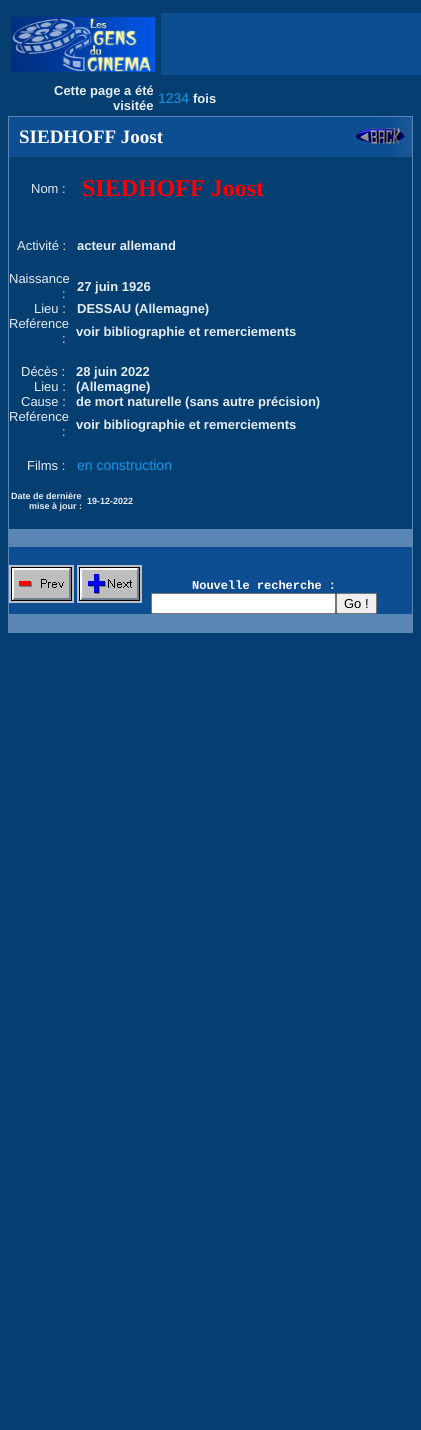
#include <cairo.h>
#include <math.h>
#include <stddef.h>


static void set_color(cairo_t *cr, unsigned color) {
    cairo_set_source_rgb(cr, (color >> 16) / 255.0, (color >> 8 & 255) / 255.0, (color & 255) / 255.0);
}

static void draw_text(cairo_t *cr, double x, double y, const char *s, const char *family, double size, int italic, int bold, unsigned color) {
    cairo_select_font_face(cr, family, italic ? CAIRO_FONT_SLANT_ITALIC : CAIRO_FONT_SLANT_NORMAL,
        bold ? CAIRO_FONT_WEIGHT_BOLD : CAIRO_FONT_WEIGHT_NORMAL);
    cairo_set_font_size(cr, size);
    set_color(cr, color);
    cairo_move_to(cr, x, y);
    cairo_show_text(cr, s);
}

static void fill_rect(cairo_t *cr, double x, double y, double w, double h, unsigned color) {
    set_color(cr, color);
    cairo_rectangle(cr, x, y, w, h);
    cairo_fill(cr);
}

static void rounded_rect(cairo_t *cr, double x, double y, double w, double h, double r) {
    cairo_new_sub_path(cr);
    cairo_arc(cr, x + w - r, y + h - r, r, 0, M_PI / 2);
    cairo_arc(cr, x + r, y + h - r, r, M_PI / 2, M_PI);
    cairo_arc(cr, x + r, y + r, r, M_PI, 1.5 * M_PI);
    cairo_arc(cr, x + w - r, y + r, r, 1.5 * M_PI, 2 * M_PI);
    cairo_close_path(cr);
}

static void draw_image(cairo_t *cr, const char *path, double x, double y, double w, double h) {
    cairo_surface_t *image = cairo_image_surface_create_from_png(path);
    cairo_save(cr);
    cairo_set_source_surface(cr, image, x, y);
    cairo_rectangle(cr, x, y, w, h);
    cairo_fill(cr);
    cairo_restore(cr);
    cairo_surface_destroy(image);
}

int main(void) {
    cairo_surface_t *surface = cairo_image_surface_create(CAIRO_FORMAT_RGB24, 421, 1430);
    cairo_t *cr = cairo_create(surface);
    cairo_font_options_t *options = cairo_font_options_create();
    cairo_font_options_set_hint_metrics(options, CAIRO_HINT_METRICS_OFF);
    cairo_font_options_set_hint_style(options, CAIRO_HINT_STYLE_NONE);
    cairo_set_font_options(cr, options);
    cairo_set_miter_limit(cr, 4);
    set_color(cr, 0x053F72);
    cairo_paint(cr);
    draw_image(cr, "assets/img1.png", 11, 17, 144, 55);
    fill_rect(cr, 161, 13, 260, 62, 0x0D4E93);
    draw_text(cr, 54, 95, "Cette page a été", "Liberation Sans", 13, 0, 1, 0xE5ECF3);
    draw_text(cr, 113, 110, "visitée", "Liberation Sans", 13, 0, 1, 0xE5ECF3);
    draw_text(cr, 158, 103, "1234", "Liberation Sans", 14, 0, 0, 0x1397E9);
    draw_text(cr, 193, 103, "fois", "Liberation Sans", 13, 0, 1, 0xE5ECF3);
    fill_rect(cr, 8, 116, 405, 517, 0x5986B5);
    fill_rect(cr, 9, 117, 318, 40, 0x0D4E93);
    draw_text(cr, 19, 143, "SIEDHOFF Joost", "Liberation Serif", 19, 0, 1, 0xFFFFFF);
    draw_image(cr, "assets/img2.png", 327, 117, 85, 40);
    draw_image(cr, "assets/img3.png", 355, 128, 50, 16);
    fill_rect(cr, 9, 157, 403, 372, 0x053F72);
    draw_text(cr, 31, 193, "Nom :", "Liberation Sans", 13, 0, 0, 0xE5ECF3);
    draw_text(cr, 82, 196, "SIEDHOFF Joost", "Liberation Serif", 24, 0, 1, 0xFF0000);
    draw_text(cr, 17, 250, "Activité :", "Liberation Sans", 13, 0, 0, 0xE5ECF3);
    draw_text(cr, 77, 250, "acteur allemand", "Liberation Sans", 13, 0, 1, 0xE5ECF3);
    draw_text(cr, 9, 283, "Naissance", "Liberation Sans", 13, 0, 0, 0xE5ECF3);
    draw_text(cr, 62, 298, ":", "Liberation Sans", 13, 0, 0, 0xE5ECF3);
    draw_text(cr, 77, 291, "27 juin 1926", "Liberation Sans", 13, 0, 1, 0xE5ECF3);
    draw_text(cr, 34, 313, "Lieu :", "Liberation Sans", 13, 0, 0, 0xE5ECF3);
    draw_text(cr, 77, 313, "DESSAU (Allemagne)", "Liberation Sans", 13, 0, 1, 0xE5ECF3);
    draw_text(cr, 9, 328, "Reférence", "Liberation Sans", 13, 0, 0, 0xE5ECF3);
    draw_text(cr, 62, 343, ":", "Liberation Sans", 13, 0, 0, 0xE5ECF3);
    draw_text(cr, 76, 336, "voir bibliographie et remerciements", "Liberation Sans", 13, 0, 1, 0xE5ECF3);
    draw_text(cr, 21, 376, "Décès :", "Liberation Sans", 13, 0, 0, 0xE5ECF3);
    draw_text(cr, 76, 376, "28 juin 2022", "Liberation Sans", 13, 0, 1, 0xE5ECF3);
    draw_text(cr, 34, 391, "Lieu :", "Liberation Sans", 13, 0, 0, 0xE5ECF3);
    draw_text(cr, 76, 391, "(Allemagne)", "Liberation Sans", 13, 0, 1, 0xE5ECF3);
    draw_text(cr, 21, 406, "Cause :", "Liberation Sans", 13, 0, 0, 0xE5ECF3);
    draw_text(cr, 76, 406, "de mort naturelle (sans autre précision)", "Liberation Sans", 13, 0, 1, 0xE5ECF3);
    draw_text(cr, 9, 421, "Reférence", "Liberation Sans", 13, 0, 0, 0xE5ECF3);
    draw_text(cr, 62, 436, ":", "Liberation Sans", 13, 0, 0, 0xE5ECF3);
    draw_text(cr, 76, 429, "voir bibliographie et remerciements", "Liberation Sans", 13, 0, 1, 0xE5ECF3);
    draw_text(cr, 27, 470, "Films :", "Liberation Sans", 13, 0, 0, 0xE5ECF3);
    draw_text(cr, 77, 470, "en construction", "Liberation Sans", 14, 0, 0, 0x1397E9);
    draw_text(cr, 11, 499, "Date de dernière", "Liberation Sans", 9, 0, 1, 0xE5ECF3);
    draw_text(cr, 29, 509, "mise à jour :", "Liberation Sans", 9, 0, 1, 0xE5ECF3);
    draw_text(cr, 87, 504, "19-12-2022", "Liberation Sans", 9, 0, 1, 0xE5ECF3);
    fill_rect(cr, 9, 547, 403, 18, 0x0D4E93);
    fill_rect(cr, 9, 565, 403, 49, 0x0D4E93);
    draw_image(cr, "assets/img4.png", 9, 565, 65, 38);
    draw_image(cr, "assets/img5.png", 77, 565, 65, 38);
    draw_text(cr, 192, 589, "Nouvelle recherche :", "Liberation Mono", 12, 0, 1, 0xFFFFFF);
    rounded_rect(cr, 151.5, 593.5, 184, 20, 1.5);
    cairo_fill_preserve(cr);
    set_color(cr, 0x767676);
    cairo_set_line_width(cr, 1);
    cairo_stroke(cr);
    set_color(cr, 0xEFEFEF);
    rounded_rect(cr, 336.5, 593.5, 40, 20, 1.5);
    cairo_fill_preserve(cr);
    set_color(cr, 0x767676);
    cairo_stroke(cr);
    draw_text(cr, 344, 608, "Go !", "Liberation Sans", 13, 0, 0, 0x000000);
    cairo_surface_write_to_png(surface, "output.png");
    cairo_font_options_destroy(options);
    cairo_destroy(cr);
    cairo_surface_destroy(surface);
    return 0;
}
